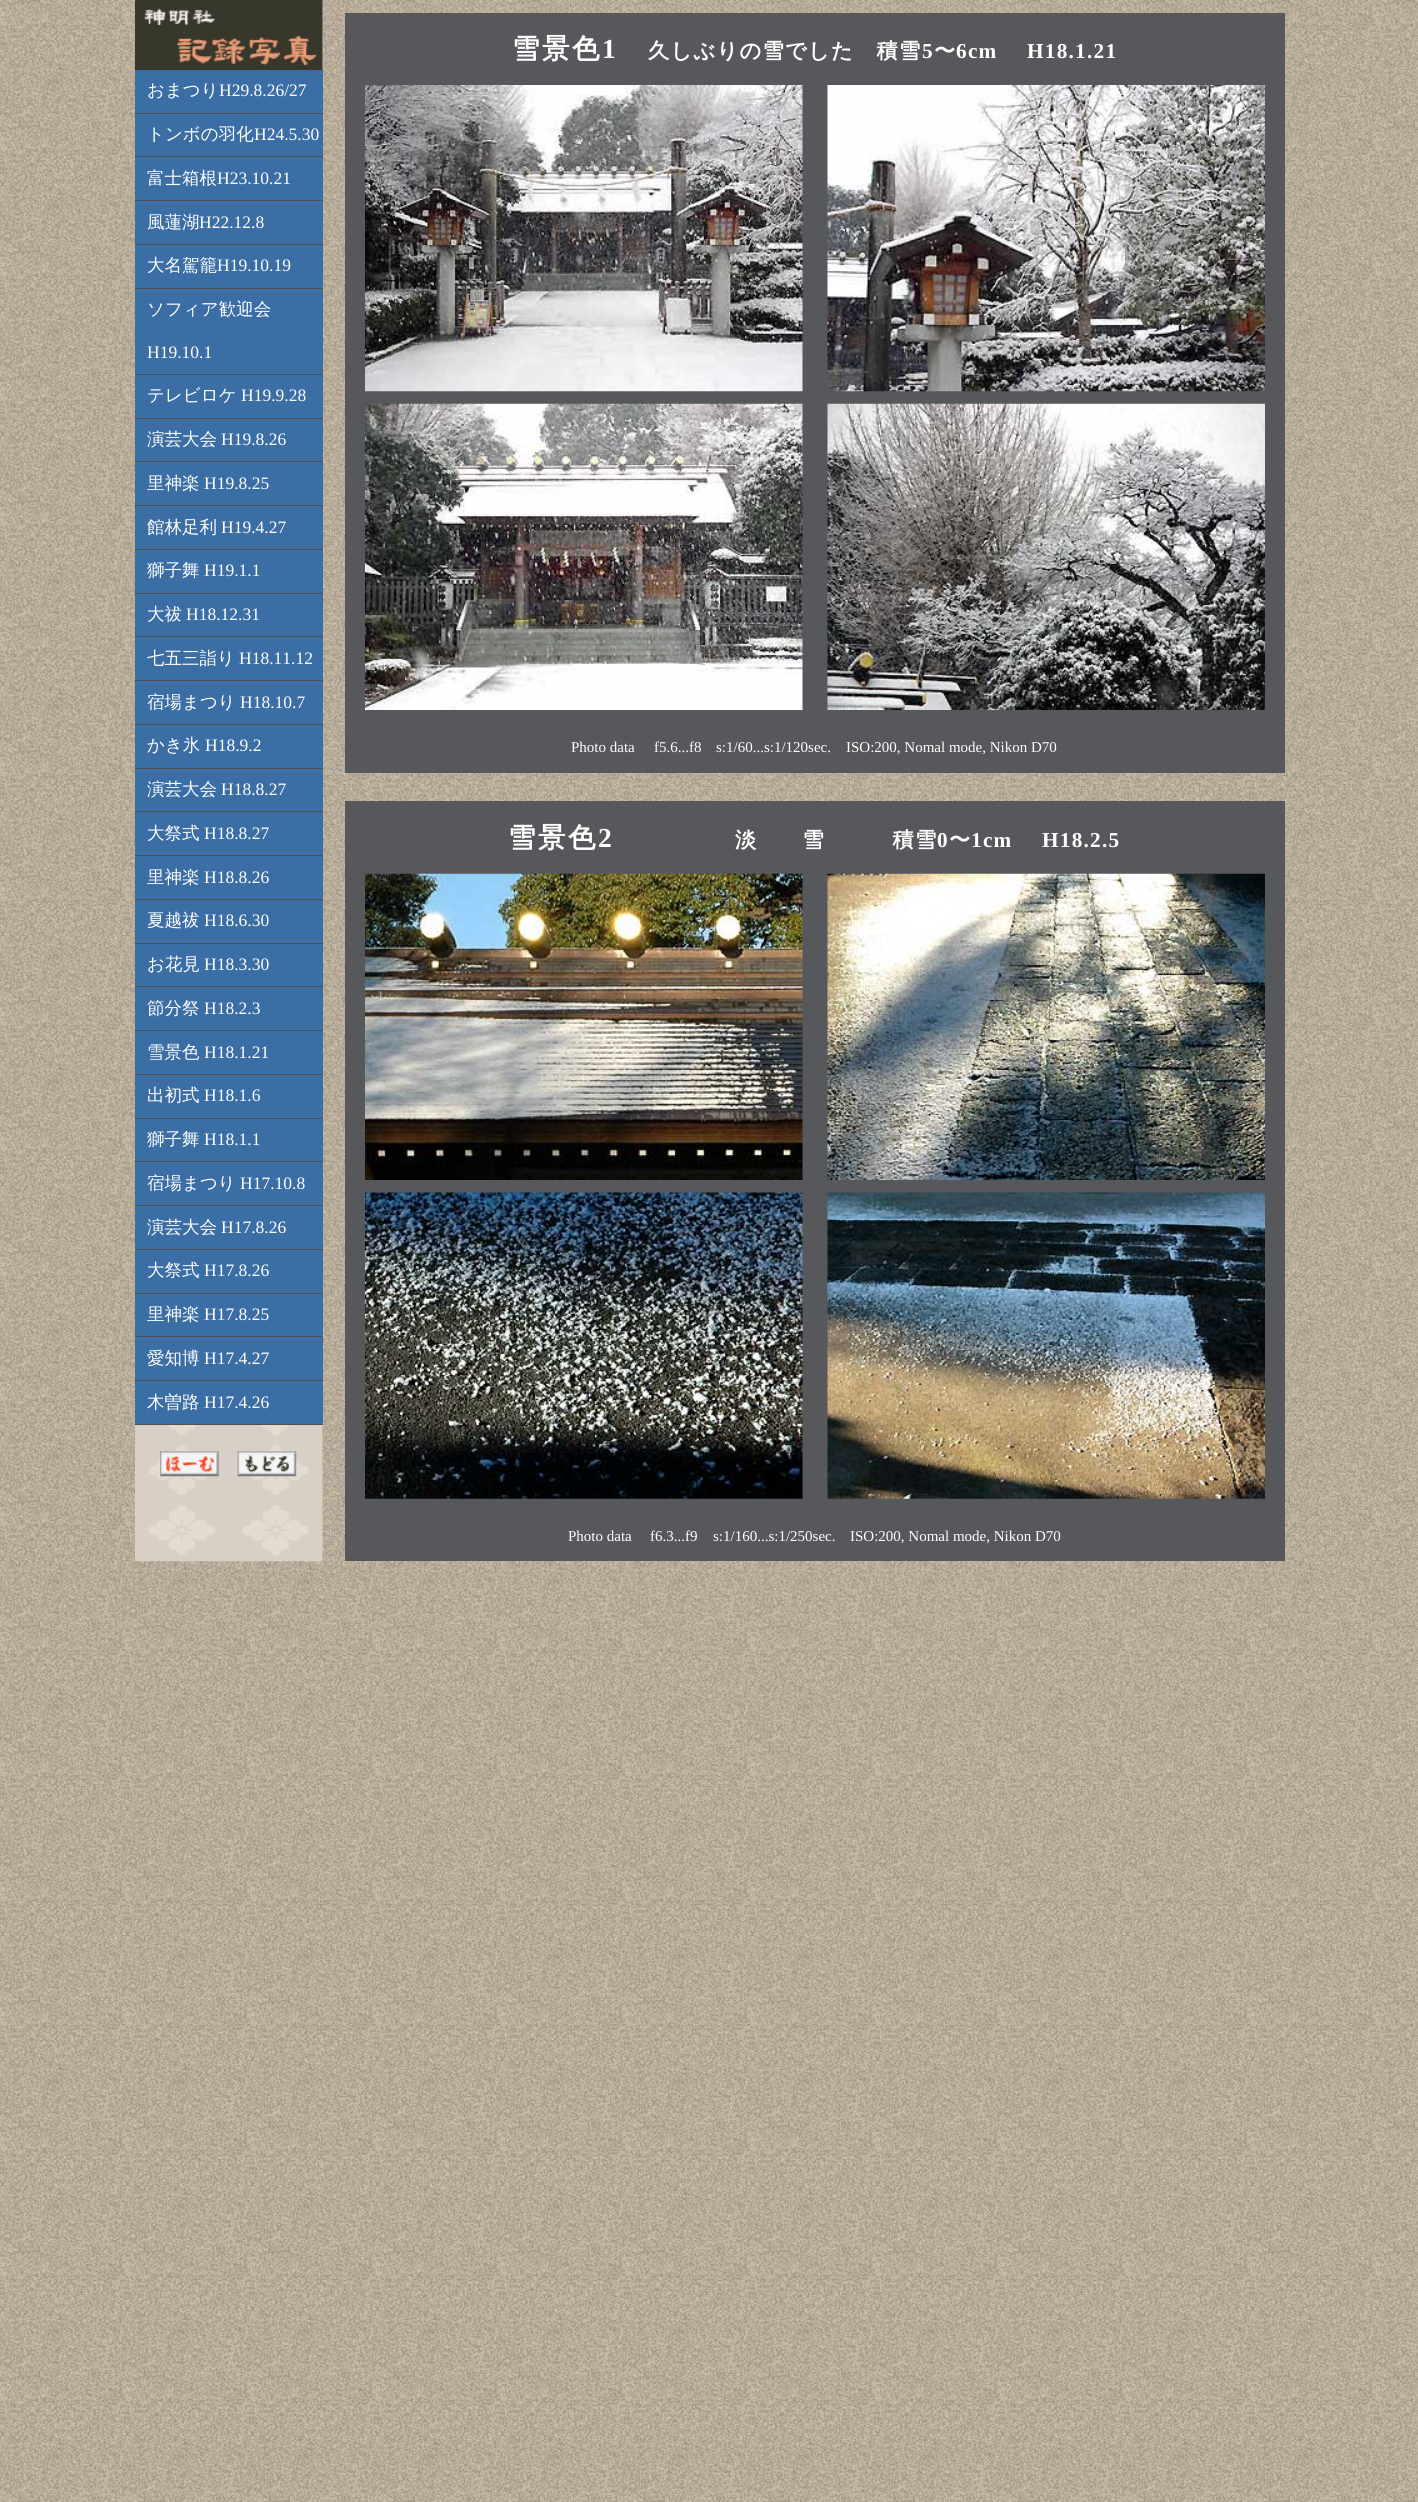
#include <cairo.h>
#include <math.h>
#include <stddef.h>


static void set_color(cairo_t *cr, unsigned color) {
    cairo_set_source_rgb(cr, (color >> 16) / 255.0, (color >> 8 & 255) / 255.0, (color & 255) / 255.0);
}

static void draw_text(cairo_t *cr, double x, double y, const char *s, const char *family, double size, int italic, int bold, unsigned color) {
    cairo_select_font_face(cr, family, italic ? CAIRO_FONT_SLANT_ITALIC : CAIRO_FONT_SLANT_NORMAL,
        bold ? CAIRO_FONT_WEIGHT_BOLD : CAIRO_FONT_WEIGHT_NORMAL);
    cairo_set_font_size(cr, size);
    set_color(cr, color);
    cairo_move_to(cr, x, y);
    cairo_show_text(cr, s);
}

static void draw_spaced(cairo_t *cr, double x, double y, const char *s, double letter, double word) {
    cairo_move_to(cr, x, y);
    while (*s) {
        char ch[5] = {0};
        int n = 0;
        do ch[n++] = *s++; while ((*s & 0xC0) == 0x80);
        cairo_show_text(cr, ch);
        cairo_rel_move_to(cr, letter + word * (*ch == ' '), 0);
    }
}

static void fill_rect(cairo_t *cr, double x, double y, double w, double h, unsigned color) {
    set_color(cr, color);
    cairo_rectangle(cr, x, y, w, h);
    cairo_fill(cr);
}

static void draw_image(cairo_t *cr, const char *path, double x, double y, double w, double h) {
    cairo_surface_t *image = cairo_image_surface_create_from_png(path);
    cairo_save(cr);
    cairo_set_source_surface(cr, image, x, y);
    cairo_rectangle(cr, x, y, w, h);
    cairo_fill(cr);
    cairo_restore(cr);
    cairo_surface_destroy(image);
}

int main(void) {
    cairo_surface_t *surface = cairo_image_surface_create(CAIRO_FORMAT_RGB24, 1418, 2502);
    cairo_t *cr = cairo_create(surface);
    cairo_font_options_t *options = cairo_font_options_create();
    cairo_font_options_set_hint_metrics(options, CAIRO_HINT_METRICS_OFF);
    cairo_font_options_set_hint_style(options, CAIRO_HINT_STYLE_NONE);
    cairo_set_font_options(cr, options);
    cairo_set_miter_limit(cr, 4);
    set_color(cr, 0xFFFFFF);
    cairo_paint(cr);
    draw_image(cr, "assets/img1.png", 0, 0, 1418, 2502);
    draw_image(cr, "assets/img2.png", 135, 0, 188, 1562);
    draw_image(cr, "assets/img3.png", 135, 0, 188, 70);
    fill_rect(cr, 135, 70, 188, 43, 0x3A6EA5);
    fill_rect(cr, 135, 113, 188, 1, 0x505050);
    draw_text(cr, 147, 96, "おまつり", "WenQuanYi Zen Hei Medium", 17.5, 0, 0, 0xFFFFFF);
    draw_text(cr, 219, 96, "H29.8.26/27", "Liberation Serif", 17.5, 0, 0, 0xFFFFFF);
    fill_rect(cr, 135, 114, 188, 86, 0x3A6EA5);
    fill_rect(cr, 135, 156, 188, 1, 0x505050);
    draw_text(cr, 147, 140, "トンボの羽化", "WenQuanYi Zen Hei Medium", 17.5, 0, 0, 0xFFFFFF);
    draw_text(cr, 254, 140, "H24.5.30", "Liberation Serif", 17.5, 0, 0, 0xFFFFFF);
    fill_rect(cr, 135, 200, 188, 1, 0x505050);
    draw_text(cr, 147, 184, "富士箱根", "WenQuanYi Zen Hei Medium", 17.5, 0, 0, 0xFFFFFF);
    draw_text(cr, 217, 184, "H23.10.21", "Liberation Serif", 17.5, 0, 0, 0xFFFFFF);
    fill_rect(cr, 135, 201, 188, 43, 0x3A6EA5);
    fill_rect(cr, 135, 244, 188, 1, 0x505050);
    draw_text(cr, 147, 228, "風蓮湖", "WenQuanYi Zen Hei Medium", 17.5, 0, 0, 0xFFFFFF);
    draw_text(cr, 199, 228, "H22.12.8", "Liberation Serif", 17.5, 0, 0, 0xFFFFFF);
    fill_rect(cr, 135, 245, 188, 43, 0x3A6EA5);
    fill_rect(cr, 135, 288, 188, 1, 0x505050);
    draw_text(cr, 147, 271, "大名駕籠", "WenQuanYi Zen Hei Medium", 17.5, 0, 0, 0xFFFFFF);
    draw_text(cr, 217, 271, "H19.10.19", "Liberation Serif", 17.5, 0, 0, 0xFFFFFF);
    fill_rect(cr, 135, 289, 188, 85, 0x3A6EA5);
    fill_rect(cr, 135, 374, 188, 1, 0x505050);
    draw_text(cr, 147, 315, "ソフィア歓迎会", "WenQuanYi Zen Hei Medium", 17.5, 0, 0, 0xFFFFFF);
    draw_text(cr, 147, 358, "H19.10.1", "Liberation Serif", 17.5, 0, 0, 0xFFFFFF);
    fill_rect(cr, 135, 375, 188, 43, 0x3A6EA5);
    fill_rect(cr, 135, 418, 188, 1, 0x505050);
    draw_text(cr, 147, 401, "テレビロケ", "WenQuanYi Zen Hei Medium", 17.5, 0, 0, 0xFFFFFF);
    draw_text(cr, 241, 401, "H19.9.28", "Liberation Serif", 17.5, 0, 0, 0xFFFFFF);
    fill_rect(cr, 135, 419, 188, 86, 0x3A6EA5);
    fill_rect(cr, 135, 461, 188, 1, 0x505050);
    draw_text(cr, 147, 445, "演芸大会", "WenQuanYi Zen Hei Medium", 17.5, 0, 0, 0xFFFFFF);
    draw_text(cr, 221, 445, "H19.8.26", "Liberation Serif", 17.5, 0, 0, 0xFFFFFF);
    fill_rect(cr, 135, 505, 188, 1, 0x505050);
    draw_text(cr, 147, 489, "里神楽", "WenQuanYi Zen Hei Medium", 17.5, 0, 0, 0xFFFFFF);
    draw_text(cr, 204, 489, "H19.8.25", "Liberation Serif", 17.5, 0, 0, 0xFFFFFF);
    fill_rect(cr, 135, 506, 188, 43, 0x3A6EA5);
    fill_rect(cr, 135, 549, 188, 1, 0x505050);
    draw_text(cr, 147, 533, "館林足利", "WenQuanYi Zen Hei Medium", 17.5, 0, 0, 0xFFFFFF);
    draw_text(cr, 221, 533, "H19.4.27", "Liberation Serif", 17.5, 0, 0, 0xFFFFFF);
    fill_rect(cr, 135, 550, 188, 43, 0x3A6EA5);
    fill_rect(cr, 135, 593, 188, 1, 0x505050);
    draw_text(cr, 147, 576, "獅子舞", "WenQuanYi Zen Hei Medium", 17.5, 0, 0, 0xFFFFFF);
    draw_text(cr, 204, 576, "H19.1.1", "Liberation Serif", 17.5, 0, 0, 0xFFFFFF);
    fill_rect(cr, 135, 594, 188, 86, 0x3A6EA5);
    fill_rect(cr, 135, 636, 188, 1, 0x505050);
    draw_text(cr, 147, 620, "大祓", "WenQuanYi Zen Hei Medium", 17.5, 0, 0, 0xFFFFFF);
    draw_text(cr, 186, 620, "H18.12.31", "Liberation Serif", 17.5, 0, 0, 0xFFFFFF);
    fill_rect(cr, 135, 680, 188, 1, 0x505050);
    draw_text(cr, 147, 664, "七五三詣り", "WenQuanYi Zen Hei Medium", 17.5, 0, 0, 0xFFFFFF);
    draw_text(cr, 239, 664, "H18.11.12", "Liberation Serif", 17.5, 0, 0, 0xFFFFFF);
    fill_rect(cr, 135, 681, 188, 43, 0x3A6EA5);
    fill_rect(cr, 135, 724, 188, 1, 0x505050);
    draw_text(cr, 147, 708, "宿場まつり", "WenQuanYi Zen Hei Medium", 17.5, 0, 0, 0xFFFFFF);
    draw_text(cr, 240, 708, "H18.10.7", "Liberation Serif", 17.5, 0, 0, 0xFFFFFF);
    fill_rect(cr, 135, 725, 188, 43, 0x3A6EA5);
    fill_rect(cr, 135, 768, 188, 1, 0x505050);
    draw_text(cr, 147, 751, "かき氷", "WenQuanYi Zen Hei Medium", 17.5, 0, 0, 0xFFFFFF);
    draw_text(cr, 205, 751, "H18.9.2", "Liberation Serif", 17.5, 0, 0, 0xFFFFFF);
    fill_rect(cr, 135, 769, 188, 86, 0x3A6EA5);
    fill_rect(cr, 135, 811, 188, 1, 0x505050);
    draw_text(cr, 147, 795, "演芸大会", "WenQuanYi Zen Hei Medium", 17.5, 0, 0, 0xFFFFFF);
    draw_text(cr, 221, 795, "H18.8.27", "Liberation Serif", 17.5, 0, 0, 0xFFFFFF);
    fill_rect(cr, 135, 855, 188, 1, 0x505050);
    draw_text(cr, 147, 839, "大祭式", "WenQuanYi Zen Hei Medium", 17.5, 0, 0, 0xFFFFFF);
    draw_text(cr, 204, 839, "H18.8.27", "Liberation Serif", 17.5, 0, 0, 0xFFFFFF);
    fill_rect(cr, 135, 856, 188, 43, 0x3A6EA5);
    fill_rect(cr, 135, 899, 188, 1, 0x505050);
    draw_text(cr, 147, 883, "里神楽", "WenQuanYi Zen Hei Medium", 17.5, 0, 0, 0xFFFFFF);
    draw_text(cr, 204, 883, "H18.8.26", "Liberation Serif", 17.5, 0, 0, 0xFFFFFF);
    fill_rect(cr, 135, 900, 188, 43, 0x3A6EA5);
    fill_rect(cr, 135, 943, 188, 1, 0x505050);
    draw_text(cr, 147, 926, "夏越祓", "WenQuanYi Zen Hei Medium", 17.5, 0, 0, 0xFFFFFF);
    draw_text(cr, 204, 926, "H18.6.30", "Liberation Serif", 17.5, 0, 0, 0xFFFFFF);
    fill_rect(cr, 135, 944, 188, 86, 0x3A6EA5);
    fill_rect(cr, 135, 986, 188, 1, 0x505050);
    draw_text(cr, 147, 970, "お花見", "WenQuanYi Zen Hei Medium", 17.5, 0, 0, 0xFFFFFF);
    draw_text(cr, 204, 970, "H18.3.30", "Liberation Serif", 17.5, 0, 0, 0xFFFFFF);
    fill_rect(cr, 135, 1030, 188, 1, 0x505050);
    draw_text(cr, 147, 1014, "節分祭", "WenQuanYi Zen Hei Medium", 17.5, 0, 0, 0xFFFFFF);
    draw_text(cr, 204, 1014, "H18.2.3", "Liberation Serif", 17.5, 0, 0, 0xFFFFFF);
    fill_rect(cr, 135, 1031, 188, 43, 0x3A6EA5);
    fill_rect(cr, 135, 1074, 188, 1, 0x505050);
    draw_text(cr, 147, 1058, "雪景色", "WenQuanYi Zen Hei Medium", 17.5, 0, 0, 0xFFFFFF);
    draw_text(cr, 204, 1058, "H18.1.21", "Liberation Serif", 17.5, 0, 0, 0xFFFFFF);
    fill_rect(cr, 135, 1075, 188, 43, 0x3A6EA5);
    fill_rect(cr, 135, 1118, 188, 1, 0x505050);
    draw_text(cr, 147, 1101, "出初式", "WenQuanYi Zen Hei Medium", 17.5, 0, 0, 0xFFFFFF);
    draw_text(cr, 204, 1101, "H18.1.6", "Liberation Serif", 17.5, 0, 0, 0xFFFFFF);
    fill_rect(cr, 135, 1119, 188, 86, 0x3A6EA5);
    fill_rect(cr, 135, 1161, 188, 1, 0x505050);
    draw_text(cr, 147, 1145, "獅子舞", "WenQuanYi Zen Hei Medium", 17.5, 0, 0, 0xFFFFFF);
    draw_text(cr, 204, 1145, "H18.1.1", "Liberation Serif", 17.5, 0, 0, 0xFFFFFF);
    fill_rect(cr, 135, 1205, 188, 1, 0x505050);
    draw_text(cr, 147, 1189, "宿場まつり", "WenQuanYi Zen Hei Medium", 17.5, 0, 0, 0xFFFFFF);
    draw_text(cr, 240, 1189, "H17.10.8", "Liberation Serif", 17.5, 0, 0, 0xFFFFFF);
    fill_rect(cr, 135, 1206, 188, 43, 0x3A6EA5);
    fill_rect(cr, 135, 1249, 188, 1, 0x505050);
    draw_text(cr, 147, 1233, "演芸大会", "WenQuanYi Zen Hei Medium", 17.5, 0, 0, 0xFFFFFF);
    draw_text(cr, 221, 1233, "H17.8.26", "Liberation Serif", 17.5, 0, 0, 0xFFFFFF);
    fill_rect(cr, 135, 1250, 188, 43, 0x3A6EA5);
    fill_rect(cr, 135, 1293, 188, 1, 0x505050);
    draw_text(cr, 147, 1276, "大祭式", "WenQuanYi Zen Hei Medium", 17.5, 0, 0, 0xFFFFFF);
    draw_text(cr, 204, 1276, "H17.8.26", "Liberation Serif", 17.5, 0, 0, 0xFFFFFF);
    fill_rect(cr, 135, 1294, 188, 86, 0x3A6EA5);
    fill_rect(cr, 135, 1336, 188, 1, 0x505050);
    draw_text(cr, 147, 1320, "里神楽", "WenQuanYi Zen Hei Medium", 17.5, 0, 0, 0xFFFFFF);
    draw_text(cr, 204, 1320, "H17.8.25", "Liberation Serif", 17.5, 0, 0, 0xFFFFFF);
    fill_rect(cr, 135, 1380, 188, 1, 0x505050);
    draw_text(cr, 147, 1364, "愛知博", "WenQuanYi Zen Hei Medium", 17.5, 0, 0, 0xFFFFFF);
    draw_text(cr, 204, 1364, "H17.4.27", "Liberation Serif", 17.5, 0, 0, 0xFFFFFF);
    fill_rect(cr, 135, 1381, 188, 43, 0x3A6EA5);
    fill_rect(cr, 135, 1424, 188, 1, 0x505050);
    draw_text(cr, 147, 1408, "木曽路", "WenQuanYi Zen Hei Medium", 17.5, 0, 0, 0xFFFFFF);
    draw_text(cr, 204, 1408, "H17.4.26", "Liberation Serif", 17.5, 0, 0, 0xFFFFFF);
    draw_image(cr, "assets/img4.png", 160, 1451, 59, 26);
    draw_image(cr, "assets/img5.png", 237, 1451, 60, 26);
    fill_rect(cr, 345, 13, 940, 760, 0x56585B);
    cairo_select_font_face(cr, "WenQuanYi Zen Hei", CAIRO_FONT_SLANT_NORMAL, CAIRO_FONT_WEIGHT_BOLD);
    cairo_set_font_size(cr, 27.5);
    set_color(cr, 0xFFFFFF);
    draw_spaced(cr, 512, 58, "雪景色", 2.5, 0);
    cairo_select_font_face(cr, "Liberation Serif", CAIRO_FONT_SLANT_NORMAL, CAIRO_FONT_WEIGHT_BOLD);
    draw_spaced(cr, 602, 58, "1", 2.5, 0);
    cairo_select_font_face(cr, "WenQuanYi Zen Hei", CAIRO_FONT_SLANT_NORMAL, CAIRO_FONT_WEIGHT_BOLD);
    cairo_set_font_size(cr, 21.25);
    draw_spaced(cr, 648, 58, "久しぶりの雪でした　積雪", 1.25, 0);
    cairo_select_font_face(cr, "Liberation Serif", CAIRO_FONT_SLANT_NORMAL, CAIRO_FONT_WEIGHT_BOLD);
    draw_spaced(cr, 922, 58, "5", 1.25, 0);
    cairo_select_font_face(cr, "WenQuanYi Zen Hei", CAIRO_FONT_SLANT_NORMAL, CAIRO_FONT_WEIGHT_BOLD);
    draw_spaced(cr, 934, 58, "〜", 1.25, 0);
    cairo_select_font_face(cr, "Liberation Serif", CAIRO_FONT_SLANT_NORMAL, CAIRO_FONT_WEIGHT_BOLD);
    draw_spaced(cr, 956, 58, "6cm", 1.25, 0);
    draw_spaced(cr, 1027, 58, "H18.1.21", 1.25, 0);
    draw_image(cr, "assets/img6.png", 365, 85, 438, 307);
    draw_image(cr, "assets/img7.png", 827, 85, 438, 307);
    draw_image(cr, "assets/img8.png", 365, 403, 438, 307);
    draw_image(cr, "assets/img9.png", 827, 403, 438, 307);
    draw_text(cr, 571, 752, "Photo data", "Liberation Serif", 15, 0, 0, 0xFFFFFF);
    draw_text(cr, 654, 752, "f5.6...f8", "Liberation Serif", 15, 0, 0, 0xFFFFFF);
    draw_text(cr, 716, 752, "s:1/60...s:1/120sec.", "Liberation Serif", 15, 0, 0, 0xFFFFFF);
    draw_text(cr, 846, 752, "ISO:200, Nomal mode, Nikon D70", "Liberation Serif", 15, 0, 0, 0xFFFFFF);
    fill_rect(cr, 345, 801, 940, 760, 0x56585B);
    cairo_select_font_face(cr, "WenQuanYi Zen Hei", CAIRO_FONT_SLANT_NORMAL, CAIRO_FONT_WEIGHT_BOLD);
    cairo_set_font_size(cr, 27.5);
    set_color(cr, 0xFFFFFF);
    draw_spaced(cr, 508, 847, "雪景色", 2.5, 0);
    cairo_select_font_face(cr, "Liberation Serif", CAIRO_FONT_SLANT_NORMAL, CAIRO_FONT_WEIGHT_BOLD);
    draw_spaced(cr, 598, 847, "2", 2.5, 0);
    cairo_select_font_face(cr, "WenQuanYi Zen Hei", CAIRO_FONT_SLANT_NORMAL, CAIRO_FONT_WEIGHT_BOLD);
    cairo_set_font_size(cr, 21.25);
    draw_spaced(cr, 735, 847, "淡　　雪　　　積雪", 1.25, 0);
    cairo_select_font_face(cr, "Liberation Serif", CAIRO_FONT_SLANT_NORMAL, CAIRO_FONT_WEIGHT_BOLD);
    draw_spaced(cr, 937, 847, "0", 1.25, 0);
    cairo_select_font_face(cr, "WenQuanYi Zen Hei", CAIRO_FONT_SLANT_NORMAL, CAIRO_FONT_WEIGHT_BOLD);
    draw_spaced(cr, 949, 847, "〜", 1.25, 0);
    cairo_select_font_face(cr, "Liberation Serif", CAIRO_FONT_SLANT_NORMAL, CAIRO_FONT_WEIGHT_BOLD);
    draw_spaced(cr, 971, 847, "1cm", 1.25, 0);
    draw_spaced(cr, 1042, 847, "H18.2.5", 1.25, 0);
    draw_image(cr, "assets/img10.png", 365, 873, 438, 307);
    draw_image(cr, "assets/img11.png", 827, 873, 438, 307);
    draw_image(cr, "assets/img12.png", 365, 1192, 438, 307);
    draw_image(cr, "assets/img13.png", 827, 1192, 438, 307);
    draw_text(cr, 568, 1541, "Photo data", "Liberation Serif", 15, 0, 0, 0xFFFFFF);
    draw_text(cr, 650, 1541, "f6.3...f9", "Liberation Serif", 15, 0, 0, 0xFFFFFF);
    draw_text(cr, 713, 1541, "s:1/160...s:1/250sec.", "Liberation Serif", 15, 0, 0, 0xFFFFFF);
    draw_text(cr, 850, 1541, "ISO:200, Nomal mode, Nikon D70", "Liberation Serif", 15, 0, 0, 0xFFFFFF);
    cairo_surface_write_to_png(surface, "output.png");
    cairo_font_options_destroy(options);
    cairo_destroy(cr);
    cairo_surface_destroy(surface);
    return 0;
}
